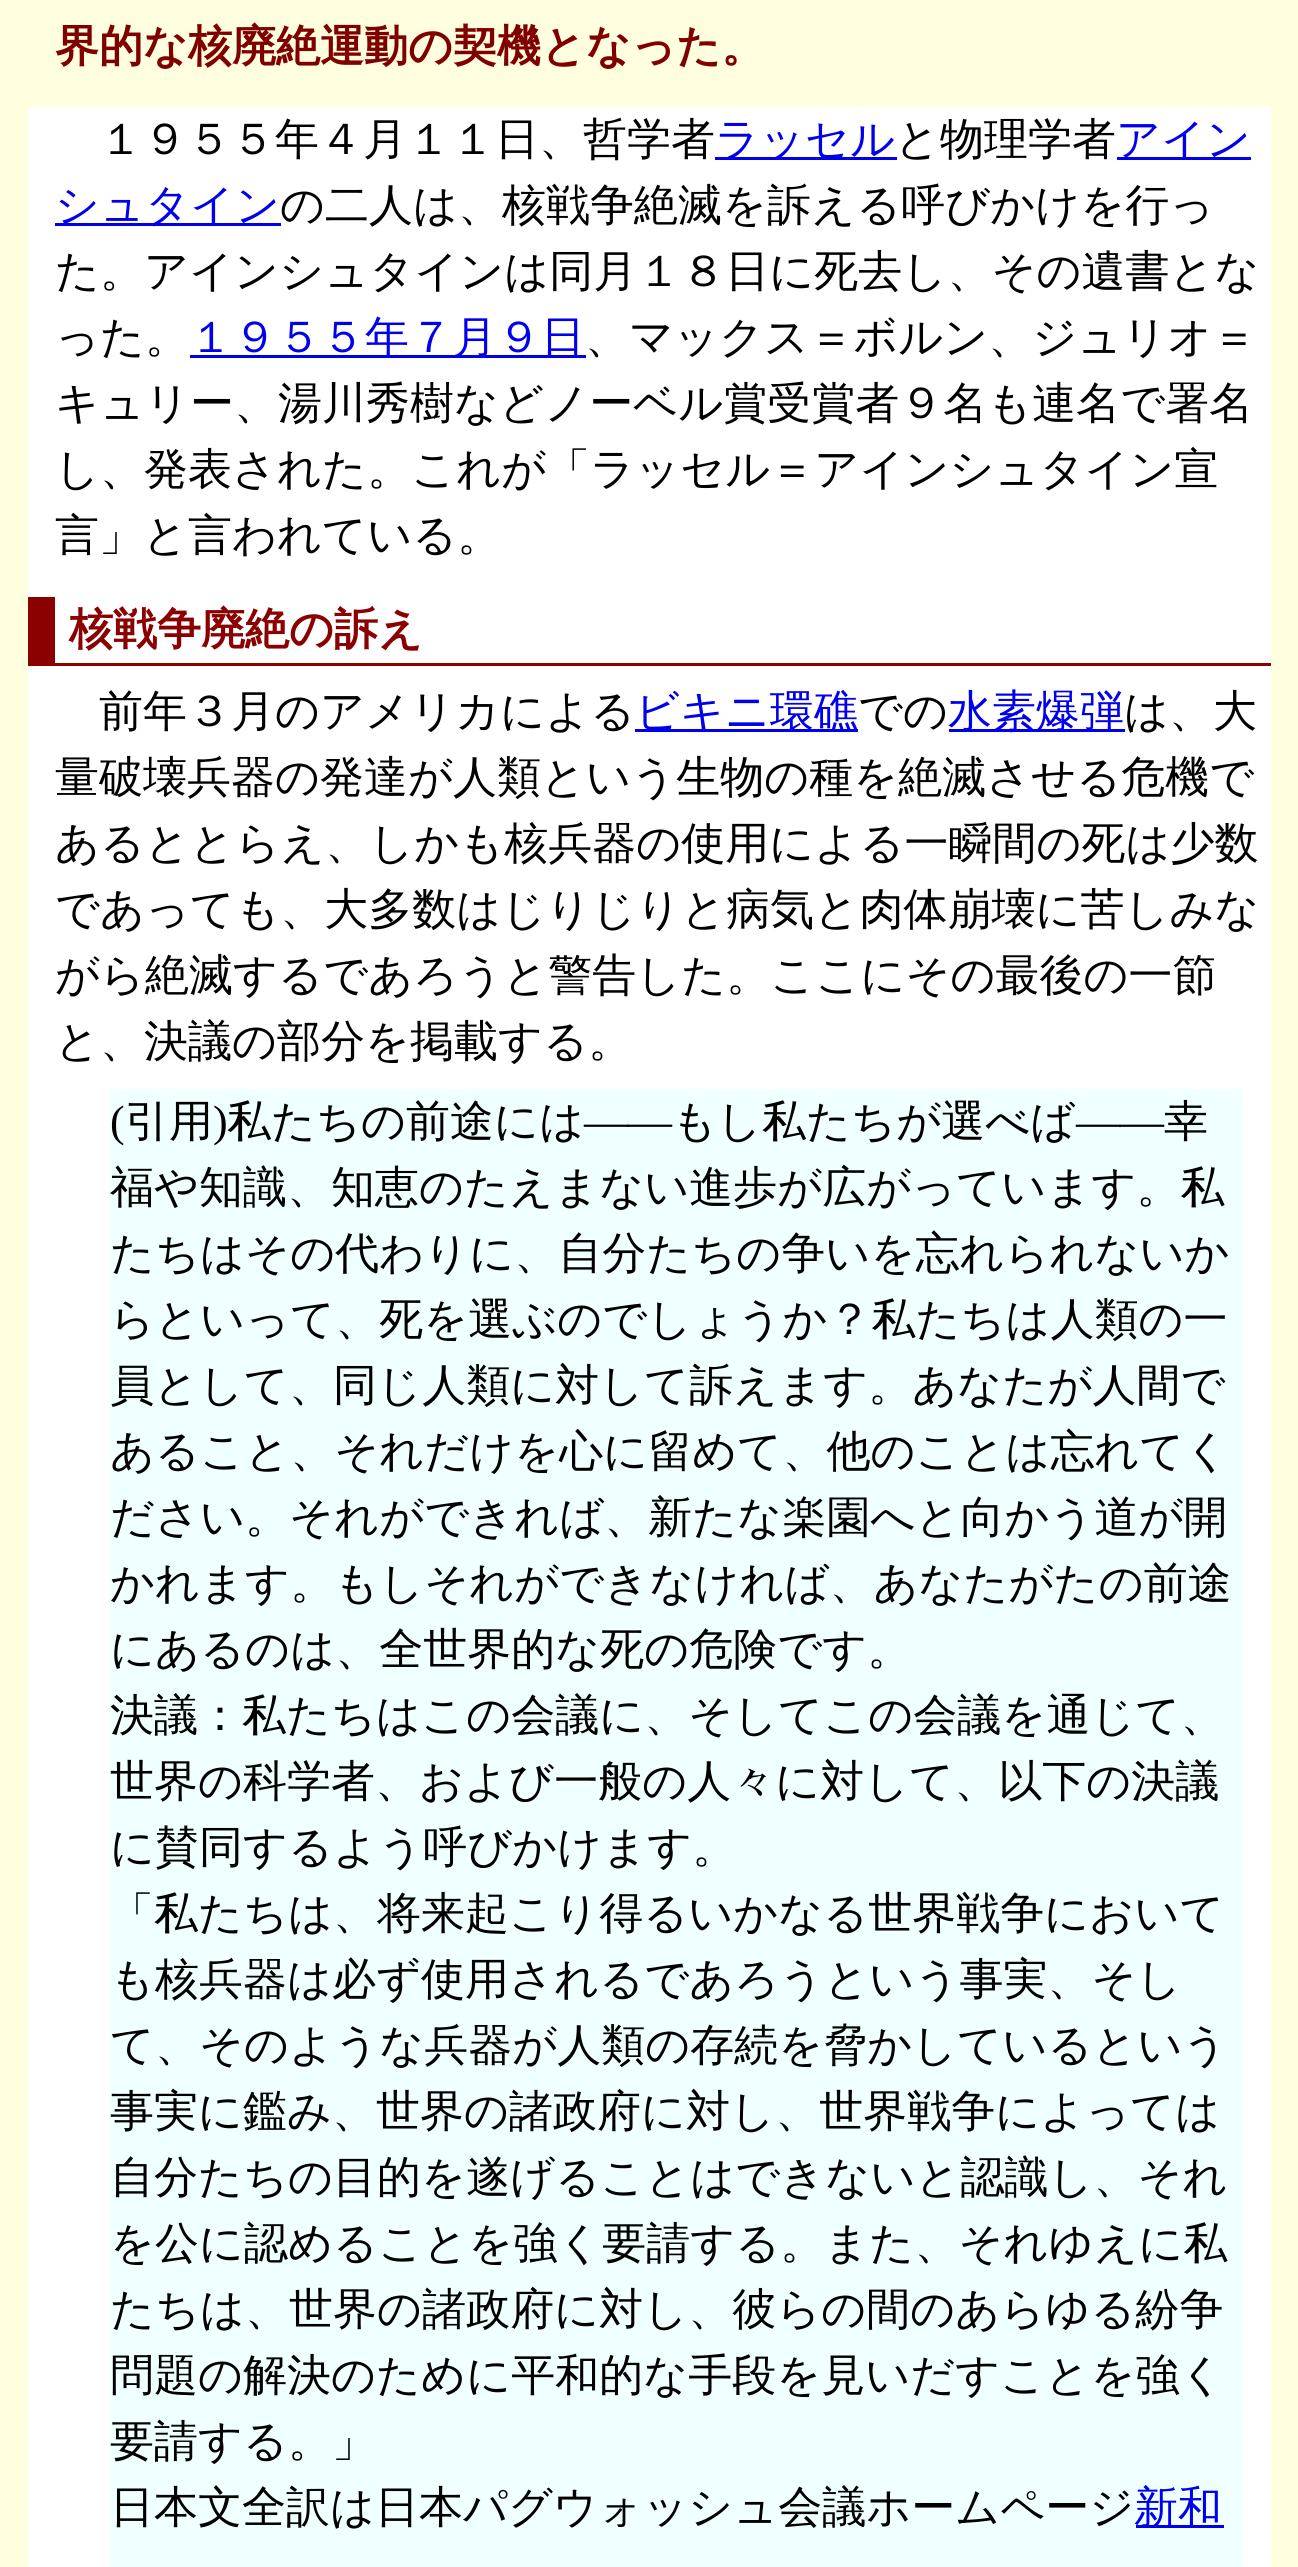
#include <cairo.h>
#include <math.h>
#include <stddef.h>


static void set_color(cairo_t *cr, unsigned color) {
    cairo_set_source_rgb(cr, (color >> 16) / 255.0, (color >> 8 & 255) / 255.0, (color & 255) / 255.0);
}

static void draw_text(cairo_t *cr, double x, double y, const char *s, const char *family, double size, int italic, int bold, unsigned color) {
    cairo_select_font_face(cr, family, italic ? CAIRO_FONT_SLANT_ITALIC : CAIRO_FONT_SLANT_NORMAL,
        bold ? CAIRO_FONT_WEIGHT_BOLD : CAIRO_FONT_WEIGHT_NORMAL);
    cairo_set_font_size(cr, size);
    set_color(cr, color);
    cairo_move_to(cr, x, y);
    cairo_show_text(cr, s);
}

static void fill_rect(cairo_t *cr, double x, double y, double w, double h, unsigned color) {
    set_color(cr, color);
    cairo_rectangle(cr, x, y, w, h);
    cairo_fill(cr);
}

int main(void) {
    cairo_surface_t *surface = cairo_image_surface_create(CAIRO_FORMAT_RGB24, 1298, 2567);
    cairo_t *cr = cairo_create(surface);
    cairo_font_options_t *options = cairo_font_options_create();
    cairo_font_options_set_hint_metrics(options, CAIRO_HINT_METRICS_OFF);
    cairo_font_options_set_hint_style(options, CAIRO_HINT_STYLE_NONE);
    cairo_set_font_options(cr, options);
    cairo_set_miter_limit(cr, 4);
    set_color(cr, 0xFFFFE0);
    cairo_paint(cr);
    draw_text(cr, 55, 61, "界的な核廃絶運動の契機となった。", "WenQuanYi Zen Hei", 44, 0, 1, 0x800000);
    fill_rect(cr, 28, 107, 1243, 2460, 0xFFFFFF);
    draw_text(cr, 99, 154, "１９５５年４月１１日、哲学者", "WenQuanYi Zen Hei Medium", 44, 0, 0, 0x000000);
    fill_rect(cr, 715, 157, 182, 3, 0x0000EE);
    draw_text(cr, 715, 154, "ラッセル", "WenQuanYi Zen Hei Medium", 44, 0, 0, 0x0000EE);
    draw_text(cr, 895, 154, "と物理学者", "WenQuanYi Zen Hei Medium", 44, 0, 0, 0x000000);
    fill_rect(cr, 1117, 157, 134, 3, 0x0000EE);
    draw_text(cr, 1116, 154, "アイン", "WenQuanYi Zen Hei Medium", 44, 0, 0, 0x0000EE);
    fill_rect(cr, 55, 223, 226, 3, 0x0000EE);
    draw_text(cr, 55, 220, "シュタイン", "WenQuanYi Zen Hei Medium", 44, 0, 0, 0x0000EE);
    draw_text(cr, 280, 220, "の二人は、核戦争絶滅を訴える呼びかけを行っ", "WenQuanYi Zen Hei Medium", 44, 0, 0, 0x000000);
    draw_text(cr, 55, 286, "た。アインシュタインは同月１８日に死去し、その遺書とな", "WenQuanYi Zen Hei Medium", 44, 0, 0, 0x000000);
    draw_text(cr, 55, 352, "った。", "WenQuanYi Zen Hei Medium", 44, 0, 0, 0x000000);
    fill_rect(cr, 190, 355, 396, 3, 0x0000EE);
    draw_text(cr, 189, 352, "１９５５年７月９日", "WenQuanYi Zen Hei Medium", 44, 0, 0, 0x0000EE);
    draw_text(cr, 585, 352, "、マックス＝ボルン、ジュリオ＝", "WenQuanYi Zen Hei Medium", 44, 0, 0, 0x000000);
    draw_text(cr, 55, 418, "キュリー、湯川秀樹などノーベル賞受賞者９名も連名で署名", "WenQuanYi Zen Hei Medium", 44, 0, 0, 0x000000);
    draw_text(cr, 55, 484, "し、発表された。これが「ラッセル＝アインシュタイン宣", "WenQuanYi Zen Hei Medium", 44, 0, 0, 0x000000);
    draw_text(cr, 55, 550, "言」と言われている。", "WenQuanYi Zen Hei Medium", 44, 0, 0, 0x000000);
    fill_rect(cr, 55, 663, 1216, 3, 0x8B0000);
    fill_rect(cr, 28, 597, 27, 69, 0x8B0000);
    draw_text(cr, 69, 644, "核戦争廃絶の訴え", "WenQuanYi Zen Hei", 44, 0, 1, 0x8B0000);
    draw_text(cr, 99, 726, "前年３月のアメリカによる", "WenQuanYi Zen Hei Medium", 44, 0, 0, 0x000000);
    fill_rect(cr, 635, 729, 223, 3, 0x0000EE);
    draw_text(cr, 635, 726, "ビキニ環礁", "WenQuanYi Zen Hei Medium", 44, 0, 0, 0x0000EE);
    draw_text(cr, 858, 726, "での", "WenQuanYi Zen Hei Medium", 44, 0, 0, 0x000000);
    fill_rect(cr, 949, 729, 176, 3, 0x0000EE);
    draw_text(cr, 948, 726, "水素爆弾", "WenQuanYi Zen Hei Medium", 44, 0, 0, 0x0000EE);
    draw_text(cr, 1124, 726, "は、大", "WenQuanYi Zen Hei Medium", 44, 0, 0, 0x000000);
    draw_text(cr, 55, 792, "量破壊兵器の発達が人類という生物の種を絶滅させる危機で", "WenQuanYi Zen Hei Medium", 44, 0, 0, 0x000000);
    draw_text(cr, 55, 858, "あるととらえ、しかも核兵器の使用による一瞬間の死は少数", "WenQuanYi Zen Hei Medium", 44, 0, 0, 0x000000);
    draw_text(cr, 55, 924, "であっても、大多数はじりじりと病気と肉体崩壊に苦しみな", "WenQuanYi Zen Hei Medium", 44, 0, 0, 0x000000);
    draw_text(cr, 55, 990, "がら絶滅するであろうと警告した。ここにその最後の一節", "WenQuanYi Zen Hei Medium", 44, 0, 0, 0x000000);
    draw_text(cr, 55, 1056, "と、決議の部分を掲載する。", "WenQuanYi Zen Hei Medium", 44, 0, 0, 0x000000);
    fill_rect(cr, 110, 1089, 1133, 1478, 0xF0FFFF);
    draw_text(cr, 110, 1136, "(", "Liberation Serif", 44, 0, 0, 0x000000);
    draw_text(cr, 125, 1136, "引用", "WenQuanYi Zen Hei Medium", 44, 0, 0, 0x000000);
    draw_text(cr, 213, 1136, ")", "Liberation Serif", 44, 0, 0, 0x000000);
    draw_text(cr, 227, 1136, "私たちの前途には", "WenQuanYi Zen Hei Medium", 44, 0, 0, 0x000000);
    draw_text(cr, 584, 1136, "――", "Liberation Serif", 44, 0, 0, 0x000000);
    draw_text(cr, 672, 1136, "もし私たちが選べば", "WenQuanYi Zen Hei Medium", 44, 0, 0, 0x000000);
    draw_text(cr, 1076, 1136, "――", "Liberation Serif", 44, 0, 0, 0x000000);
    draw_text(cr, 1164, 1136, "幸", "WenQuanYi Zen Hei Medium", 44, 0, 0, 0x000000);
    draw_text(cr, 110, 1202, "福や知識、知恵のたえまない進歩が広がっています。私", "WenQuanYi Zen Hei Medium", 44, 0, 0, 0x000000);
    draw_text(cr, 110, 1268, "たちはその代わりに、自分たちの争いを忘れられないか", "WenQuanYi Zen Hei Medium", 44, 0, 0, 0x000000);
    draw_text(cr, 110, 1334, "らといって、死を選ぶのでしょうか？私たちは人類の一", "WenQuanYi Zen Hei Medium", 44, 0, 0, 0x000000);
    draw_text(cr, 110, 1400, "員として、同じ人類に対して訴えます。あなたが人間で", "WenQuanYi Zen Hei Medium", 44, 0, 0, 0x000000);
    draw_text(cr, 110, 1466, "あること、それだけを心に留めて、他のことは忘れてく", "WenQuanYi Zen Hei Medium", 44, 0, 0, 0x000000);
    draw_text(cr, 110, 1532, "ださい。それができれば、新たな楽園へと向かう道が開", "WenQuanYi Zen Hei Medium", 44, 0, 0, 0x000000);
    draw_text(cr, 110, 1598, "かれます。もしそれができなければ、あなたがたの前途", "WenQuanYi Zen Hei Medium", 44, 0, 0, 0x000000);
    draw_text(cr, 110, 1664, "にあるのは、全世界的な死の危険です。", "WenQuanYi Zen Hei Medium", 44, 0, 0, 0x000000);
    draw_text(cr, 110, 1730, "決議：私たちはこの会議に、そしてこの会議を通じて、", "WenQuanYi Zen Hei Medium", 44, 0, 0, 0x000000);
    draw_text(cr, 110, 1796, "世界の科学者、および一般の人々に対して、以下の決議", "WenQuanYi Zen Hei Medium", 44, 0, 0, 0x000000);
    draw_text(cr, 110, 1862, "に賛同するよう呼びかけます。", "WenQuanYi Zen Hei Medium", 44, 0, 0, 0x000000);
    draw_text(cr, 110, 1928, "「私たちは、将来起こり得るいかなる世界戦争において", "WenQuanYi Zen Hei Medium", 44, 0, 0, 0x000000);
    draw_text(cr, 110, 1994, "も核兵器は必ず使用されるであろうという事実、そし", "WenQuanYi Zen Hei Medium", 44, 0, 0, 0x000000);
    draw_text(cr, 110, 2060, "て、そのような兵器が人類の存続を脅かしているという", "WenQuanYi Zen Hei Medium", 44, 0, 0, 0x000000);
    draw_text(cr, 110, 2126, "事実に鑑み、世界の諸政府に対し、世界戦争によっては", "WenQuanYi Zen Hei Medium", 44, 0, 0, 0x000000);
    draw_text(cr, 110, 2192, "自分たちの目的を遂げることはできないと認識し、それ", "WenQuanYi Zen Hei Medium", 44, 0, 0, 0x000000);
    draw_text(cr, 110, 2258, "を公に認めることを強く要請する。また、それゆえに私", "WenQuanYi Zen Hei Medium", 44, 0, 0, 0x000000);
    draw_text(cr, 110, 2324, "たちは、世界の諸政府に対し、彼らの間のあらゆる紛争", "WenQuanYi Zen Hei Medium", 44, 0, 0, 0x000000);
    draw_text(cr, 110, 2390, "問題の解決のために平和的な手段を見いだすことを強く", "WenQuanYi Zen Hei Medium", 44, 0, 0, 0x000000);
    draw_text(cr, 110, 2456, "要請する。」", "WenQuanYi Zen Hei Medium", 44, 0, 0, 0x000000);
    draw_text(cr, 110, 2522, "日本文全訳は日本パグウォッシュ会議ホームページ", "WenQuanYi Zen Hei Medium", 44, 0, 0, 0x000000);
    fill_rect(cr, 1136, 2525, 88, 3, 0x0000EE);
    draw_text(cr, 1134, 2522, "新和", "WenQuanYi Zen Hei Medium", 44, 0, 0, 0x0000EE);
    cairo_surface_write_to_png(surface, "output.png");
    cairo_font_options_destroy(options);
    cairo_destroy(cr);
    cairo_surface_destroy(surface);
    return 0;
}
